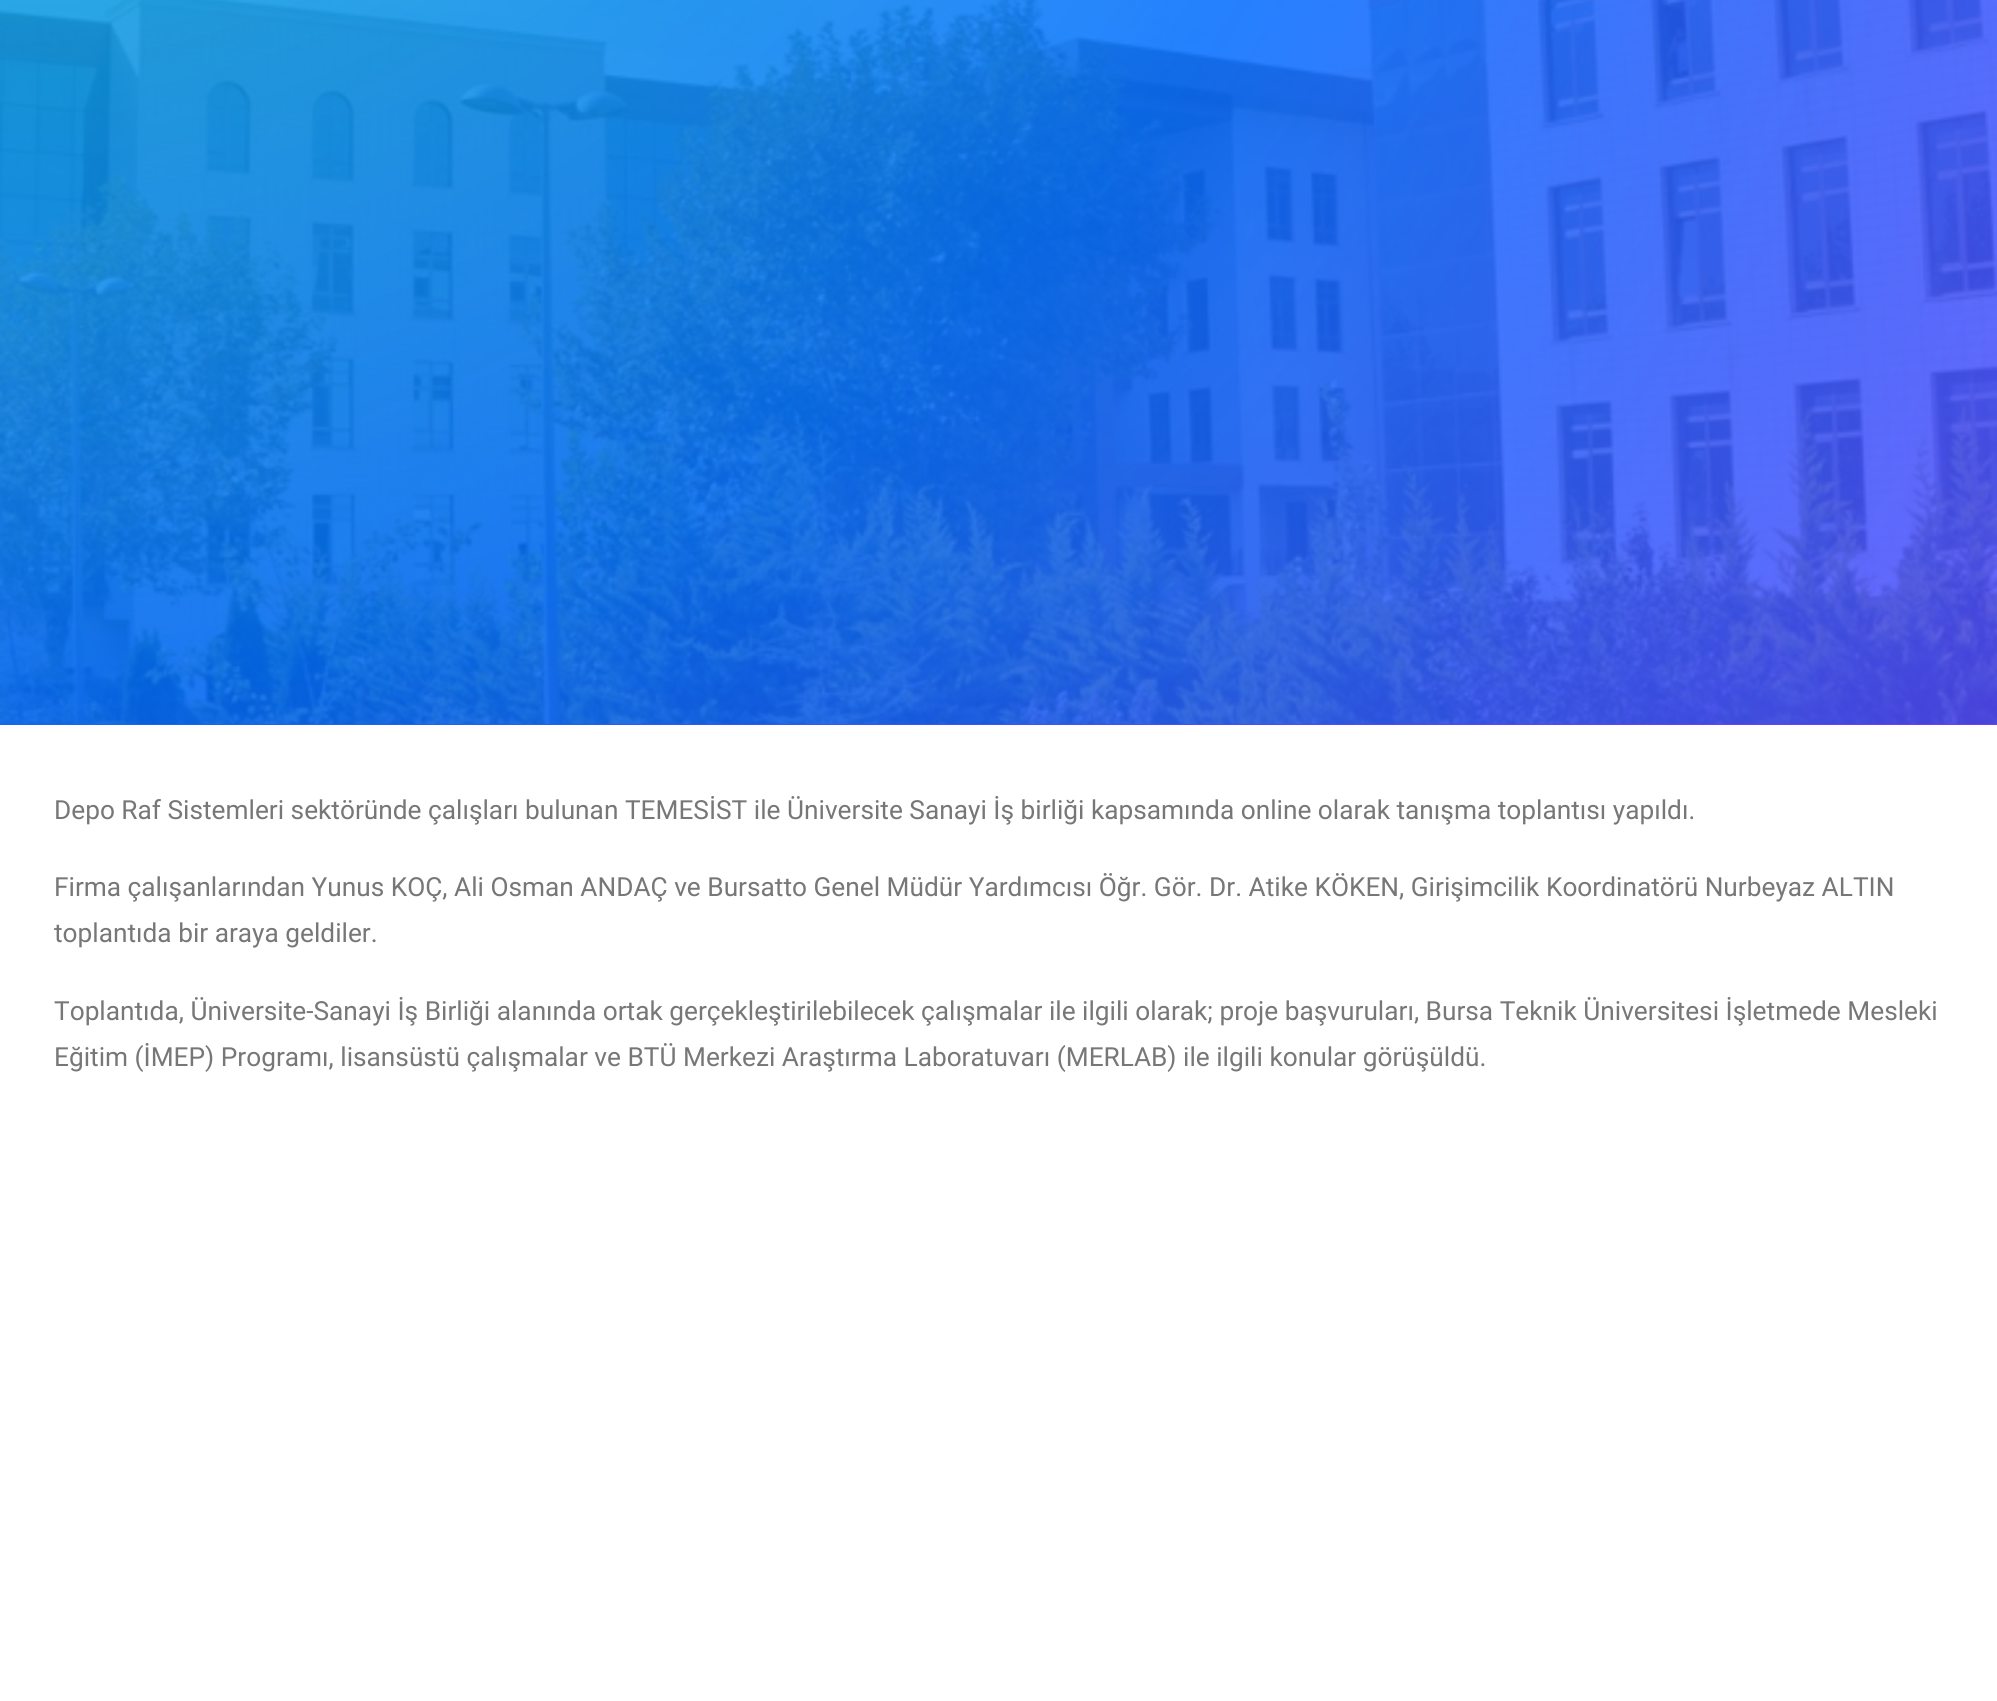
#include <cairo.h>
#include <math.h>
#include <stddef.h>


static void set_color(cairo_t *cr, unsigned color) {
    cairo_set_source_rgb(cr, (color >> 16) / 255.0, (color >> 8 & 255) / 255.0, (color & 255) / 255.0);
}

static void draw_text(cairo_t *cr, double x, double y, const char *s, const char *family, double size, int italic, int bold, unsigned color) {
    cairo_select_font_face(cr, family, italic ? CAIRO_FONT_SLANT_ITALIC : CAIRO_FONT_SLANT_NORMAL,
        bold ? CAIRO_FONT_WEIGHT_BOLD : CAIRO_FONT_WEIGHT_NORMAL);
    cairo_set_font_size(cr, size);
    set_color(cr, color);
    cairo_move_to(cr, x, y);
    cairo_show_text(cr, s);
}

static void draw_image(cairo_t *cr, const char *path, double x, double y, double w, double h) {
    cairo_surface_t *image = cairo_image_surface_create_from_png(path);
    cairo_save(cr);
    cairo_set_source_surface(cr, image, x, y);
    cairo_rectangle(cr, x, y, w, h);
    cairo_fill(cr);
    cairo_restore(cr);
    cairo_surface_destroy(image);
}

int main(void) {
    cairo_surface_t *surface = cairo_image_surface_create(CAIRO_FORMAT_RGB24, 1997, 1701);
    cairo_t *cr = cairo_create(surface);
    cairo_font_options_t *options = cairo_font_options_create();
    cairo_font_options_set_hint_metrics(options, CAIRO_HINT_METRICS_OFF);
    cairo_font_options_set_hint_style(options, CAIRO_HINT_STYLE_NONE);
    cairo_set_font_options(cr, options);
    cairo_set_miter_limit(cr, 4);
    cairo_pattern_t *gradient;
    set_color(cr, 0xFFFFFF);
    cairo_paint(cr);
    gradient = cairo_pattern_create_radial(-9, -976, 0, -9, -976, 2638);
    cairo_pattern_add_color_stop_rgba(gradient, 0.09, 0.047, 0.706, 0.808, 1);
    cairo_pattern_add_color_stop_rgba(gradient, 0.48, 0, 0.424, 1, 1);
    cairo_pattern_add_color_stop_rgba(gradient, 0.91, 0.392, 0.259, 1, 1);
    cairo_set_source(cr, gradient);
    cairo_pattern_destroy(gradient);
    cairo_rectangle(cr, 0, 724, 1997, 1);
    cairo_fill(cr);
    draw_image(cr, "assets/img1.png", 0, 0, 1997, 724);
    draw_text(cr, 54, 819, "Depo Raf Sistemleri sektöründe çalışları bulunan TEMESİST ile Üniversite Sanayi İş birliği kapsamında online olarak tanışma toplantısı yapıldı.", "Roboto", 26.25, 0, 0, 0x777777);
    draw_text(cr, 54, 896, "Firma çalışanlarından Yunus KOÇ, Ali Osman ANDAÇ ve Bursatto Genel Müdür Yardımcısı Öğr. Gör. Dr. Atike KÖKEN, Girişimcilik Koordinatörü Nurbeyaz ALTIN", "Roboto", 26.25, 0, 0, 0x777777);
    draw_text(cr, 54, 942, "toplantıda bir araya geldiler.", "Roboto", 26.25, 0, 0, 0x777777);
    draw_text(cr, 54, 1020, "Toplantıda, Üniversite-Sanayi İş Birliği alanında ortak gerçekleştirilebilecek çalışmalar ile ilgili olarak; proje başvuruları, Bursa Teknik Üniversitesi İşletmede Mesleki", "Roboto", 26.25, 0, 0, 0x777777);
    draw_text(cr, 54, 1066, "Eğitim (İMEP) Programı, lisansüstü çalışmalar ve BTÜ Merkezi Araştırma Laboratuvarı (MERLAB) ile ilgili konular görüşüldü.", "Roboto", 26.25, 0, 0, 0x777777);
    cairo_surface_write_to_png(surface, "output.png");
    cairo_font_options_destroy(options);
    cairo_destroy(cr);
    cairo_surface_destroy(surface);
    return 0;
}
